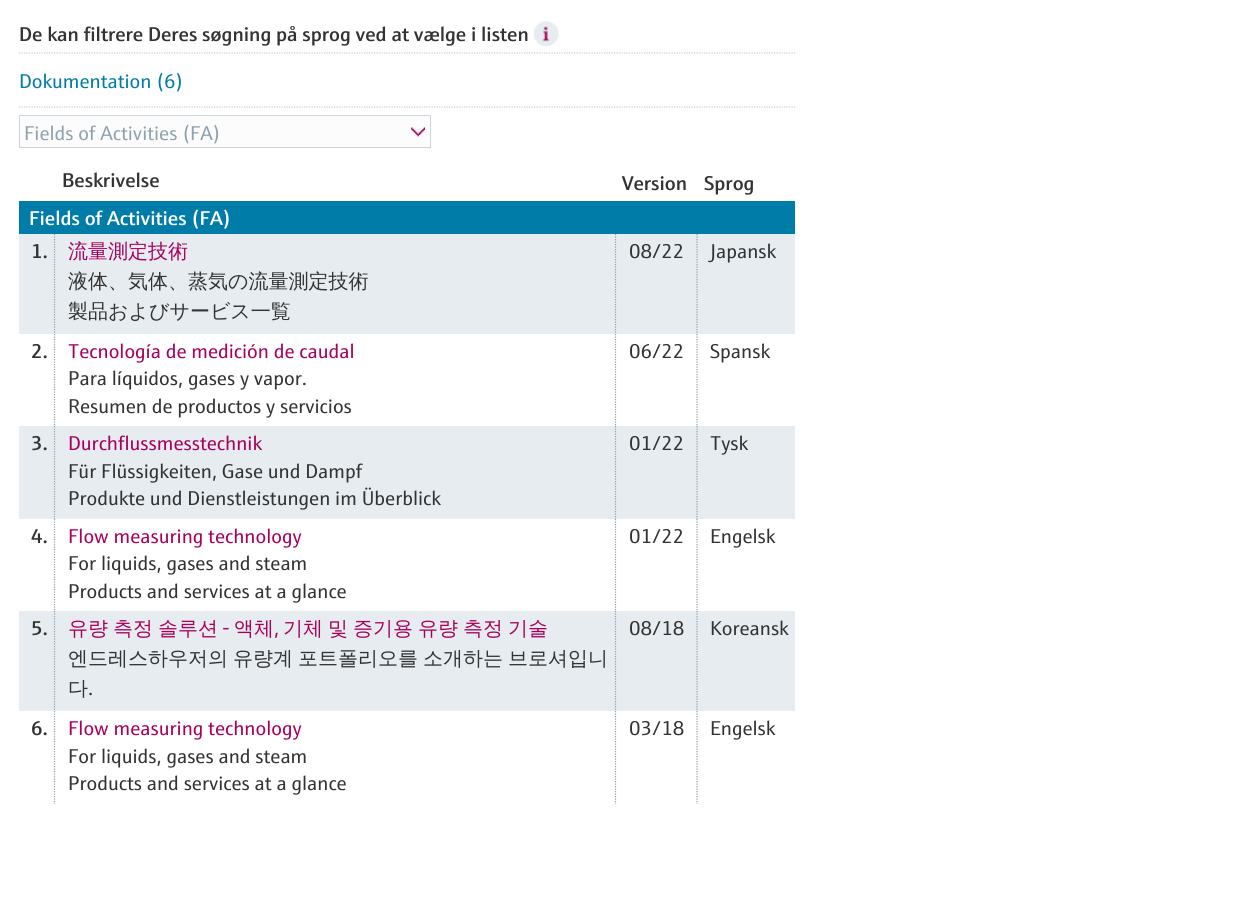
#include <cairo.h>
#include <math.h>
#include <stddef.h>


static void set_color(cairo_t *cr, unsigned color) {
    cairo_set_source_rgb(cr, (color >> 16) / 255.0, (color >> 8 & 255) / 255.0, (color & 255) / 255.0);
}

static void draw_text(cairo_t *cr, double x, double y, const char *s, const char *family, double size, int italic, int bold, unsigned color) {
    cairo_select_font_face(cr, family, italic ? CAIRO_FONT_SLANT_ITALIC : CAIRO_FONT_SLANT_NORMAL,
        bold ? CAIRO_FONT_WEIGHT_BOLD : CAIRO_FONT_WEIGHT_NORMAL);
    cairo_set_font_size(cr, size);
    set_color(cr, color);
    cairo_move_to(cr, x, y);
    cairo_show_text(cr, s);
}

static void draw_spaced(cairo_t *cr, double x, double y, const char *s, double letter, double word) {
    cairo_move_to(cr, x, y);
    while (*s) {
        char ch[5] = {0};
        int n = 0;
        do ch[n++] = *s++; while ((*s & 0xC0) == 0x80);
        cairo_show_text(cr, ch);
        cairo_rel_move_to(cr, letter + word * (*ch == ' '), 0);
    }
}

static void fill_rect(cairo_t *cr, double x, double y, double w, double h, unsigned color) {
    set_color(cr, color);
    cairo_rectangle(cr, x, y, w, h);
    cairo_fill(cr);
}

static void draw_image(cairo_t *cr, const char *path, double x, double y, double w, double h) {
    cairo_surface_t *image = cairo_image_surface_create_from_png(path);
    cairo_save(cr);
    cairo_set_source_surface(cr, image, x, y);
    cairo_rectangle(cr, x, y, w, h);
    cairo_fill(cr);
    cairo_restore(cr);
    cairo_surface_destroy(image);
}

int main(void) {
    cairo_surface_t *surface = cairo_image_surface_create(CAIRO_FORMAT_RGB24, 1235, 907);
    cairo_t *cr = cairo_create(surface);
    cairo_font_options_t *options = cairo_font_options_create();
    cairo_font_options_set_hint_metrics(options, CAIRO_HINT_METRICS_OFF);
    cairo_font_options_set_hint_style(options, CAIRO_HINT_STYLE_NONE);
    cairo_set_font_options(cr, options);
    cairo_set_miter_limit(cr, 4);
    set_color(cr, 0xFFFFFF);
    cairo_paint(cr);
    draw_text(cr, 19, 41, "De kan filtrere Deres søgning på sprog ved at vælge i listen", "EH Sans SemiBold", 20, 0, 0, 0x333333);
    draw_image(cr, "assets/img1.png", 533, 21, 26, 26);
    cairo_new_path(cr);
    cairo_move_to(cr, 19, 53);
    cairo_line_to(cr, 795, 53);
    set_color(cr, 0xCCCCCC);
    cairo_set_line_width(cr, 1.2);
    cairo_set_dash(cr, (double[]){1.25, 1.25}, 2, 0);
    cairo_stroke(cr);
    cairo_new_path(cr);
    cairo_move_to(cr, 19, 107);
    cairo_line_to(cr, 795, 107);
    cairo_stroke(cr);
    draw_text(cr, 19, 88, "Dokumentation (6)", "EH Sans", 20, 0, 0, 0x007CA9);
    set_color(cr, 0xFCFCFC);
    cairo_rectangle(cr, 19.5, 115.5, 411, 32);
    cairo_fill_preserve(cr);
    set_color(cr, 0xCCD5DB);
    cairo_set_line_width(cr, 1);
    cairo_set_dash(cr, NULL, 0, 0);
    cairo_stroke(cr);
    draw_text(cr, 24, 140, "Fields of Activities (FA)", "EH Sans", 20, 0, 0, 0x8FA2AC);
    draw_image(cr, "assets/img2.png", 411, 127, 14, 10);
    draw_text(cr, 62, 187, "Beskrivelse", "EH Sans SemiBold", 20, 0, 0, 0x333333);
    draw_text(cr, 622, 190, "Version", "EH Sans SemiBold", 20, 0, 0, 0x333333);
    draw_text(cr, 704, 190, "Sprog", "EH Sans SemiBold", 20, 0, 0, 0x333333);
    fill_rect(cr, 19, 201, 776, 33, 0x007CA9);
    draw_text(cr, 29, 225, "Fields of Activities (FA)", "EH Sans SemiBold", 20, 0, 0, 0xFFFFFF);
    fill_rect(cr, 19, 234, 776, 100, 0xE6ECF0);
    cairo_new_path(cr);
    cairo_move_to(cr, 54.5, 234);
    cairo_line_to(cr, 54.5, 334);
    set_color(cr, 0x8FA2AC);
    cairo_set_line_width(cr, 1.2);
    cairo_set_dash(cr, (double[]){1.25, 1.25}, 2, 0);
    cairo_stroke(cr);
    draw_text(cr, 31, 258, "1.", "EH Sans SemiBold", 20, 0, 0, 0x333333);
    cairo_new_path(cr);
    cairo_move_to(cr, 615.5, 234);
    cairo_line_to(cr, 615.5, 334);
    set_color(cr, 0x8FA2AC);
    cairo_stroke(cr);
    draw_text(cr, 68, 258, "流量測定技術", "WenQuanYi Zen Hei Medium", 20, 0, 0, 0xA8005C);
    draw_text(cr, 68, 288, "液体、気体、蒸気の流量測定技術", "WenQuanYi Zen Hei Medium", 20, 0, 0, 0x333333);
    draw_text(cr, 68, 318, "製品およびサービス一覧", "WenQuanYi Zen Hei Medium", 20, 0, 0, 0x333333);
    cairo_new_path(cr);
    cairo_move_to(cr, 697, 234);
    cairo_line_to(cr, 697, 334);
    set_color(cr, 0x8FA2AC);
    cairo_stroke(cr);
    draw_text(cr, 629, 258, "08/22", "EH Sans", 20, 0, 0, 0x333333);
    draw_text(cr, 710, 258, "Japansk", "EH Sans", 20, 0, 0, 0x333333);
    cairo_new_path(cr);
    cairo_move_to(cr, 54.5, 334);
    cairo_line_to(cr, 54.5, 426);
    set_color(cr, 0x8FA2AC);
    cairo_stroke(cr);
    draw_text(cr, 31, 358, "2.", "EH Sans SemiBold", 20, 0, 0, 0x333333);
    cairo_new_path(cr);
    cairo_move_to(cr, 615.5, 334);
    cairo_line_to(cr, 615.5, 426);
    set_color(cr, 0x8FA2AC);
    cairo_stroke(cr);
    draw_text(cr, 68, 358, "Tecnología de medición de caudal", "EH Sans", 20, 0, 0, 0xA8005C);
    draw_text(cr, 68, 385, "Para líquidos, gases y vapor.", "EH Sans", 20, 0, 0, 0x333333);
    draw_text(cr, 68, 413, "Resumen de productos y servicios", "EH Sans", 20, 0, 0, 0x333333);
    cairo_new_path(cr);
    cairo_move_to(cr, 697, 334);
    cairo_line_to(cr, 697, 426);
    set_color(cr, 0x8FA2AC);
    cairo_stroke(cr);
    draw_text(cr, 629, 358, "06/22", "EH Sans", 20, 0, 0, 0x333333);
    draw_text(cr, 710, 358, "Spansk", "EH Sans", 20, 0, 0, 0x333333);
    fill_rect(cr, 19, 426, 776, 93, 0xE6ECF0);
    cairo_new_path(cr);
    cairo_move_to(cr, 54.5, 426);
    cairo_line_to(cr, 54.5, 519);
    set_color(cr, 0x8FA2AC);
    cairo_stroke(cr);
    draw_text(cr, 31, 450, "3.", "EH Sans SemiBold", 20, 0, 0, 0x333333);
    cairo_new_path(cr);
    cairo_move_to(cr, 615.5, 426);
    cairo_line_to(cr, 615.5, 519);
    set_color(cr, 0x8FA2AC);
    cairo_stroke(cr);
    draw_text(cr, 68, 450, "Durchflussmesstechnik", "EH Sans", 20, 0, 0, 0xA8005C);
    draw_text(cr, 68, 478, "Für Flüssigkeiten, Gase und Dampf", "EH Sans", 20, 0, 0, 0x333333);
    draw_text(cr, 68, 505, "Produkte und Dienstleistungen im Überblick", "EH Sans", 20, 0, 0, 0x333333);
    cairo_new_path(cr);
    cairo_move_to(cr, 697, 426);
    cairo_line_to(cr, 697, 519);
    set_color(cr, 0x8FA2AC);
    cairo_stroke(cr);
    draw_text(cr, 629, 450, "01/22", "EH Sans", 20, 0, 0, 0x333333);
    draw_text(cr, 710, 450, "Tysk", "EH Sans", 20, 0, 0, 0x333333);
    cairo_new_path(cr);
    cairo_move_to(cr, 54.5, 519);
    cairo_line_to(cr, 54.5, 611);
    set_color(cr, 0x8FA2AC);
    cairo_stroke(cr);
    draw_text(cr, 31, 543, "4.", "EH Sans SemiBold", 20, 0, 0, 0x333333);
    cairo_new_path(cr);
    cairo_move_to(cr, 615.5, 519);
    cairo_line_to(cr, 615.5, 611);
    set_color(cr, 0x8FA2AC);
    cairo_stroke(cr);
    draw_text(cr, 68, 543, "Flow measuring technology", "EH Sans", 20, 0, 0, 0xA8005C);
    draw_text(cr, 68, 570, "For liquids, gases and steam", "EH Sans", 20, 0, 0, 0x333333);
    draw_text(cr, 68, 598, "Products and services at a glance", "EH Sans", 20, 0, 0, 0x333333);
    cairo_new_path(cr);
    cairo_move_to(cr, 697, 519);
    cairo_line_to(cr, 697, 611);
    set_color(cr, 0x8FA2AC);
    cairo_stroke(cr);
    draw_text(cr, 629, 543, "01/22", "EH Sans", 20, 0, 0, 0x333333);
    draw_text(cr, 710, 543, "Engelsk", "EH Sans", 20, 0, 0, 0x333333);
    fill_rect(cr, 19, 611, 776, 100, 0xE6ECF0);
    cairo_new_path(cr);
    cairo_move_to(cr, 54.5, 611);
    cairo_line_to(cr, 54.5, 711);
    set_color(cr, 0x8FA2AC);
    cairo_stroke(cr);
    draw_text(cr, 31, 635, "5.", "EH Sans SemiBold", 20, 0, 0, 0x333333);
    cairo_new_path(cr);
    cairo_move_to(cr, 615.5, 611);
    cairo_line_to(cr, 615.5, 711);
    set_color(cr, 0x8FA2AC);
    cairo_stroke(cr);
    cairo_select_font_face(cr, "WenQuanYi Zen Hei Medium", CAIRO_FONT_SLANT_NORMAL, CAIRO_FONT_WEIGHT_NORMAL);
    set_color(cr, 0xA8005C);
    draw_spaced(cr, 68, 635, "유량 측정 솔루션", 0, -1);
    draw_text(cr, 222, 635, "-", "EH Sans", 20, 0, 0, 0xA8005C);
    draw_text(cr, 234, 635, "액체", "WenQuanYi Zen Hei Medium", 20, 0, 0, 0xA8005C);
    draw_spaced(cr, 283, 635, "기체 및 증기용 유량 측정 기술", 0, -1);
    draw_text(cr, 274, 635, ",", "EH Sans", 20, 0, 0, 0xA8005C);
    cairo_select_font_face(cr, "WenQuanYi Zen Hei Medium", CAIRO_FONT_SLANT_NORMAL, CAIRO_FONT_WEIGHT_NORMAL);
    set_color(cr, 0x333333);
    draw_spaced(cr, 68, 665, "엔드레스하우저의 유량계 포트폴리오를 소개하는 브로셔입니", 0, -1);
    draw_text(cr, 68, 695, "다", "WenQuanYi Zen Hei Medium", 20, 0, 0, 0x333333);
    draw_text(cr, 88, 695, ".", "EH Sans", 20, 0, 0, 0x333333);
    cairo_new_path(cr);
    cairo_move_to(cr, 697, 611);
    cairo_line_to(cr, 697, 711);
    set_color(cr, 0x8FA2AC);
    cairo_stroke(cr);
    draw_text(cr, 629, 635, "08/18", "EH Sans", 20, 0, 0, 0x333333);
    draw_text(cr, 710, 635, "Koreansk", "EH Sans", 20, 0, 0, 0x333333);
    cairo_new_path(cr);
    cairo_move_to(cr, 54.5, 711);
    cairo_line_to(cr, 54.5, 804);
    set_color(cr, 0x8FA2AC);
    cairo_stroke(cr);
    draw_text(cr, 31, 735, "6.", "EH Sans SemiBold", 20, 0, 0, 0x333333);
    cairo_new_path(cr);
    cairo_move_to(cr, 615.5, 711);
    cairo_line_to(cr, 615.5, 804);
    set_color(cr, 0x8FA2AC);
    cairo_stroke(cr);
    draw_text(cr, 68, 735, "Flow measuring technology", "EH Sans", 20, 0, 0, 0xA8005C);
    draw_text(cr, 68, 763, "For liquids, gases and steam", "EH Sans", 20, 0, 0, 0x333333);
    draw_text(cr, 68, 790, "Products and services at a glance", "EH Sans", 20, 0, 0, 0x333333);
    cairo_new_path(cr);
    cairo_move_to(cr, 697, 711);
    cairo_line_to(cr, 697, 804);
    set_color(cr, 0x8FA2AC);
    cairo_stroke(cr);
    draw_text(cr, 629, 735, "03/18", "EH Sans", 20, 0, 0, 0x333333);
    draw_text(cr, 710, 735, "Engelsk", "EH Sans", 20, 0, 0, 0x333333);
    cairo_surface_write_to_png(surface, "output.png");
    cairo_font_options_destroy(options);
    cairo_destroy(cr);
    cairo_surface_destroy(surface);
    return 0;
}
